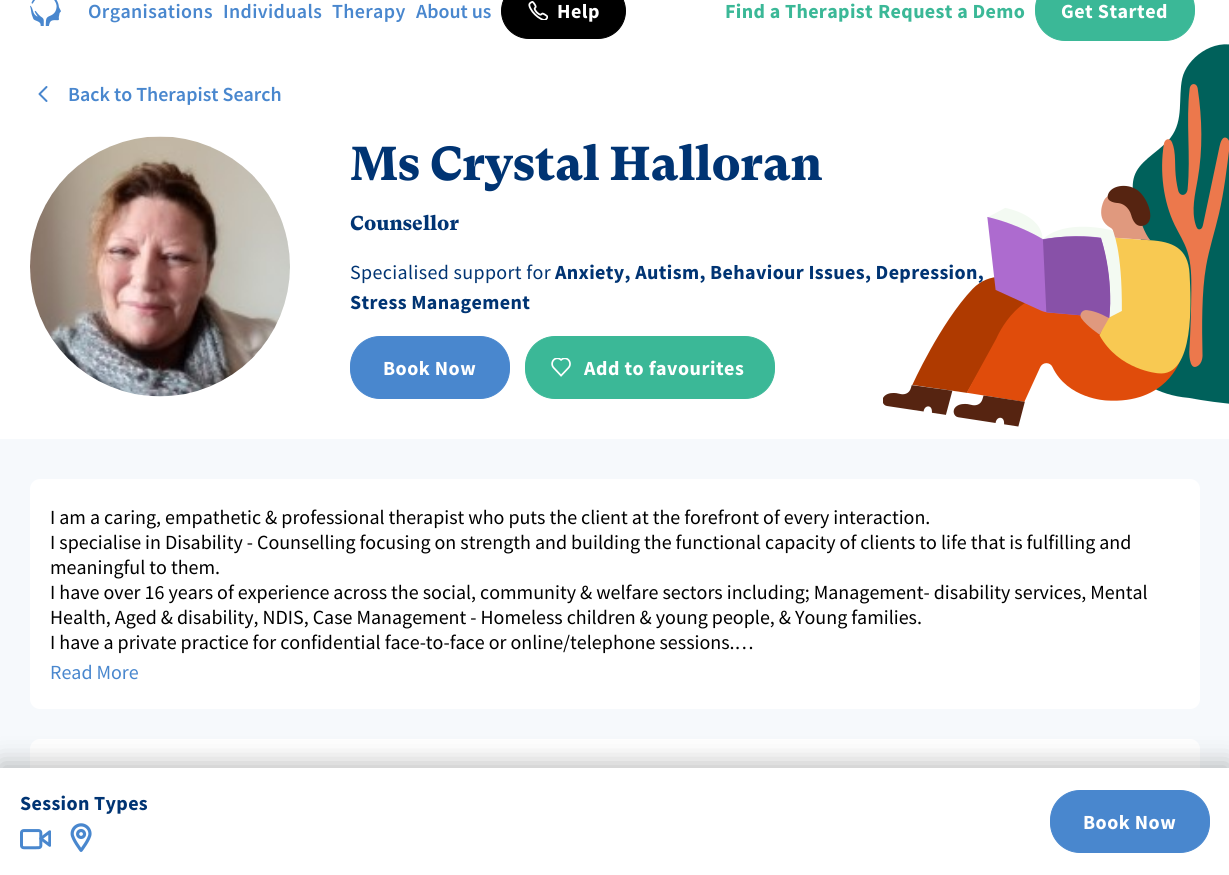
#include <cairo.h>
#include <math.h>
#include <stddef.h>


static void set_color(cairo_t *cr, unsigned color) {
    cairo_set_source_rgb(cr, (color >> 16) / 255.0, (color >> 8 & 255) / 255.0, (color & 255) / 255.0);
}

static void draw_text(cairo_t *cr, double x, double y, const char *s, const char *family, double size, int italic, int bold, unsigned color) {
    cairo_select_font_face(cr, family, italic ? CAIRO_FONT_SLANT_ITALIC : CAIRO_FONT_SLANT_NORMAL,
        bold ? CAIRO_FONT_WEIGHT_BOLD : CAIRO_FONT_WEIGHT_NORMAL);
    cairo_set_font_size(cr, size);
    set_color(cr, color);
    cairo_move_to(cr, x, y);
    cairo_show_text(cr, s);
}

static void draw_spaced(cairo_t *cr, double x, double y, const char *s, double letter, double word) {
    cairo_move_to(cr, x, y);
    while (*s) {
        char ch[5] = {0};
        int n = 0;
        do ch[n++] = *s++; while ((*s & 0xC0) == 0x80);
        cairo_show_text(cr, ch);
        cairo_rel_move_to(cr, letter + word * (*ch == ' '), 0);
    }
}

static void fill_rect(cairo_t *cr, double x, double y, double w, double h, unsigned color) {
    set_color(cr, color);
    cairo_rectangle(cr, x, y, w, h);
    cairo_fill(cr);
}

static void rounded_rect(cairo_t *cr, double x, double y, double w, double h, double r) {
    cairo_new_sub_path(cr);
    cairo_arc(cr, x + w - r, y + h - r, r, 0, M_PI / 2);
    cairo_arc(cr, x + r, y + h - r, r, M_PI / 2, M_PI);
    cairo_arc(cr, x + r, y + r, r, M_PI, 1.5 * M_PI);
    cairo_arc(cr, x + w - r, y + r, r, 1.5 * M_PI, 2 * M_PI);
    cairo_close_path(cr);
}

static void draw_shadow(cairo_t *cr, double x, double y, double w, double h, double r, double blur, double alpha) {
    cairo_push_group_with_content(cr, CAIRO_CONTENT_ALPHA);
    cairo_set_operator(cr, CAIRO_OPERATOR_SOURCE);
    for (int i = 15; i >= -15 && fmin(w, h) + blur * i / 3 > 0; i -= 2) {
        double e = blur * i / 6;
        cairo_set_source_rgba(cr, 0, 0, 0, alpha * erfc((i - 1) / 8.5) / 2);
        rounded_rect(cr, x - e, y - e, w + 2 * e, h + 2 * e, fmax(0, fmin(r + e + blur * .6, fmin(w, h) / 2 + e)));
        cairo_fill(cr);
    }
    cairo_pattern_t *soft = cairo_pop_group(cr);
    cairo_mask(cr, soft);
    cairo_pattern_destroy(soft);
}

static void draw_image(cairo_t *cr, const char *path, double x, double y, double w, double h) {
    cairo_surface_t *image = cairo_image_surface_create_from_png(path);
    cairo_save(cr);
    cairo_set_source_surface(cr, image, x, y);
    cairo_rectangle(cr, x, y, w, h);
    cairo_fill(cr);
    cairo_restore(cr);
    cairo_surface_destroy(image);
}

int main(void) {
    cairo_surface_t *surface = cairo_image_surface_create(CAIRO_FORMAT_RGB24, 1229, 875);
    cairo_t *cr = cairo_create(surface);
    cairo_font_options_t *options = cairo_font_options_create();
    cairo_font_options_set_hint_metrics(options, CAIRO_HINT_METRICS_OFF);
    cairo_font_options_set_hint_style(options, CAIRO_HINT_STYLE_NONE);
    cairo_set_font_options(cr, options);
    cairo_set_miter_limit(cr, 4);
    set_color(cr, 0xF6F9FC);
    cairo_paint(cr);
    fill_rect(cr, 0, 0, 1229, 439, 0xFFFFFF);
    draw_image(cr, "assets/img1.png", 30, 0, 31, 26);
    cairo_select_font_face(cr, "Source Sans Pro SemiBold", CAIRO_FONT_SLANT_NORMAL, CAIRO_FONT_WEIGHT_NORMAL);
    cairo_set_font_size(cr, 20);
    set_color(cr, 0x4987CE);
    draw_spaced(cr, 88, 18, "Organisations", 0.35, 0);
    draw_spaced(cr, 223, 18, "Individuals", 0.35, 0);
    draw_spaced(cr, 332, 18, "Therapy", 0.35, 0);
    draw_text(cr, 416, 18, "About us", "Source Sans Pro SemiBold", 20, 0, 0, 0x4987CE);
    set_color(cr, 0x000000);
    rounded_rect(cr, 501.5, -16.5, 124, 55, 27.5);
    cairo_fill_preserve(cr);
    cairo_set_line_width(cr, 1);
    cairo_stroke(cr);
    draw_image(cr, "assets/img2.png", 528, 1, 20, 19);
    cairo_select_font_face(cr, "Source Sans Pro", CAIRO_FONT_SLANT_NORMAL, CAIRO_FONT_WEIGHT_BOLD);
    set_color(cr, 0xFFFFFF);
    draw_spaced(cr, 557, 18, "Help", 0.5, 0);
    set_color(cr, 0x3BB897);
    draw_spaced(cr, 725, 18, "Find a Therapist", 0.35, 0);
    draw_spaced(cr, 878, 18, "Request a Demo", 0.35, 0);
    rounded_rect(cr, 1035.5, -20.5, 159, 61, 29.5);
    cairo_fill_preserve(cr);
    cairo_stroke(cr);
    set_color(cr, 0xFFFFFF);
    draw_spaced(cr, 1061, 18, "Get Started", 0.5, 0);
    cairo_new_path(cr);
    cairo_move_to(cr, 46.5, 101);
    cairo_line_to(cr, 39.5, 94);
    cairo_line_to(cr, 46.5, 87);
    set_color(cr, 0x4987CE);
    cairo_set_line_width(cr, 2);
    cairo_set_line_cap(cr, CAIRO_LINE_CAP_ROUND);
    cairo_set_line_join(cr, CAIRO_LINE_JOIN_ROUND);
    cairo_stroke(cr);
    draw_text(cr, 68, 101, "Back to Therapist Search", "Source Sans Pro SemiBold", 20, 0, 0, 0x4987CE);
    draw_image(cr, "assets/img3.png", 883, 44, 346, 383);
    draw_image(cr, "assets/img4.png", 30, 136, 260, 261);
    cairo_select_font_face(cr, "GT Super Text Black", CAIRO_FONT_SLANT_NORMAL, CAIRO_FONT_WEIGHT_NORMAL);
    cairo_set_font_size(cr, 47.5);
    set_color(cr, 0x003473);
    draw_spaced(cr, 350, 180, "Ms Crystal Halloran", -0.2, 0);
    draw_text(cr, 350, 230, "Counsellor", "GT Super Text Black", 20, 0, 0, 0x003473);
    cairo_select_font_face(cr, "Source Sans Pro", CAIRO_FONT_SLANT_NORMAL, CAIRO_FONT_WEIGHT_NORMAL);
    draw_spaced(cr, 350, 279, "Specialised support for", 0.35, 0);
    cairo_select_font_face(cr, "Source Sans Pro", CAIRO_FONT_SLANT_NORMAL, CAIRO_FONT_WEIGHT_BOLD);
    draw_spaced(cr, 555, 279, "Anxiety, Autism, Behaviour Issues, Depression,", 0.35, 0);
    draw_spaced(cr, 350, 309, "Stress Management", 0.35, 0);
    set_color(cr, 0x4987CE);
    rounded_rect(cr, 350.5, 336.5, 159, 62, 29.5);
    cairo_fill_preserve(cr);
    cairo_set_line_width(cr, 1);
    cairo_set_line_cap(cr, CAIRO_LINE_CAP_BUTT);
    cairo_set_line_join(cr, CAIRO_LINE_JOIN_MITER);
    cairo_stroke(cr);
    set_color(cr, 0xFFFFFF);
    draw_spaced(cr, 383, 375, "Book Now", 0.5, 0);
    set_color(cr, 0x3BB897);
    rounded_rect(cr, 525.5, 336.5, 249, 62, 29.5);
    cairo_fill_preserve(cr);
    cairo_stroke(cr);
    draw_image(cr, "assets/img5.png", 551, 358, 20, 19);
    set_color(cr, 0xFFFFFF);
    draw_spaced(cr, 584, 375, "Add to favourites", 0.5, 0);
    rounded_rect(cr, 30, 479, 1170, 230, 10);
    cairo_fill(cr);
    draw_text(cr, 50, 524, "I am a caring, empathetic & professional therapist who puts the client at the forefront of every interaction.", "Source Sans Pro", 20, 0, 0, 0x000000);
    draw_text(cr, 50, 549, "I specialise in Disability - Counselling focusing on strength and building the functional capacity of clients to life that is fulfilling and", "Source Sans Pro", 20, 0, 0, 0x000000);
    draw_text(cr, 50, 574, "meaningful to them.", "Source Sans Pro", 20, 0, 0, 0x000000);
    draw_text(cr, 50, 599, "I have over 16 years of experience across the social, community & welfare sectors including; Management- disability services, Mental", "Source Sans Pro", 20, 0, 0, 0x000000);
    draw_text(cr, 50, 624, "Health, Aged & disability, NDIS, Case Management - Homeless children & young people, & Young families.", "Source Sans Pro", 20, 0, 0, 0x000000);
    draw_text(cr, 50, 649, "I have a private practice for confidential face-to-face or online/telephone sessions.…", "Source Sans Pro", 20, 0, 0, 0x000000);
    draw_text(cr, 50, 679, "Read More", "Source Sans Pro", 20, 0, 0, 0x4987CE);
    set_color(cr, 0xFFFFFF);
    rounded_rect(cr, 30, 739, 1170, 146, 10);
    cairo_fill(cr);
    set_color(cr, 0x000000);
    draw_shadow(cr, 0, 763, 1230, 107, 0, 12.5, 0.25);
    fill_rect(cr, 0, 768, 1229, 107, 0xFFFFFF);
    cairo_select_font_face(cr, "Source Sans Pro", CAIRO_FONT_SLANT_NORMAL, CAIRO_FONT_WEIGHT_BOLD);
    set_color(cr, 0x003473);
    draw_spaced(cr, 20, 810, "Session Types", 0.35, 0);
    draw_image(cr, "assets/img6.png", 20, 829, 31, 21);
    draw_image(cr, "assets/img7.png", 70, 823, 22, 29);
    set_color(cr, 0x4987CE);
    rounded_rect(cr, 1050.5, 790.5, 159, 62, 29.5);
    cairo_fill_preserve(cr);
    cairo_stroke(cr);
    set_color(cr, 0xFFFFFF);
    draw_spaced(cr, 1083, 829, "Book Now", 0.5, 0);
    cairo_surface_write_to_png(surface, "output.png");
    cairo_font_options_destroy(options);
    cairo_destroy(cr);
    cairo_surface_destroy(surface);
    return 0;
}
